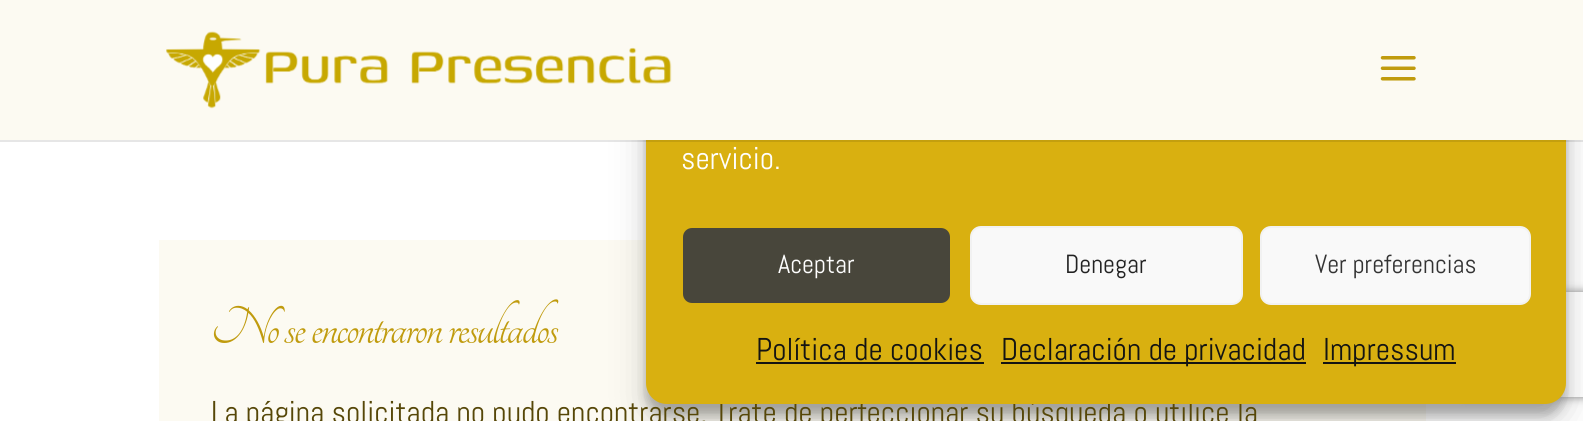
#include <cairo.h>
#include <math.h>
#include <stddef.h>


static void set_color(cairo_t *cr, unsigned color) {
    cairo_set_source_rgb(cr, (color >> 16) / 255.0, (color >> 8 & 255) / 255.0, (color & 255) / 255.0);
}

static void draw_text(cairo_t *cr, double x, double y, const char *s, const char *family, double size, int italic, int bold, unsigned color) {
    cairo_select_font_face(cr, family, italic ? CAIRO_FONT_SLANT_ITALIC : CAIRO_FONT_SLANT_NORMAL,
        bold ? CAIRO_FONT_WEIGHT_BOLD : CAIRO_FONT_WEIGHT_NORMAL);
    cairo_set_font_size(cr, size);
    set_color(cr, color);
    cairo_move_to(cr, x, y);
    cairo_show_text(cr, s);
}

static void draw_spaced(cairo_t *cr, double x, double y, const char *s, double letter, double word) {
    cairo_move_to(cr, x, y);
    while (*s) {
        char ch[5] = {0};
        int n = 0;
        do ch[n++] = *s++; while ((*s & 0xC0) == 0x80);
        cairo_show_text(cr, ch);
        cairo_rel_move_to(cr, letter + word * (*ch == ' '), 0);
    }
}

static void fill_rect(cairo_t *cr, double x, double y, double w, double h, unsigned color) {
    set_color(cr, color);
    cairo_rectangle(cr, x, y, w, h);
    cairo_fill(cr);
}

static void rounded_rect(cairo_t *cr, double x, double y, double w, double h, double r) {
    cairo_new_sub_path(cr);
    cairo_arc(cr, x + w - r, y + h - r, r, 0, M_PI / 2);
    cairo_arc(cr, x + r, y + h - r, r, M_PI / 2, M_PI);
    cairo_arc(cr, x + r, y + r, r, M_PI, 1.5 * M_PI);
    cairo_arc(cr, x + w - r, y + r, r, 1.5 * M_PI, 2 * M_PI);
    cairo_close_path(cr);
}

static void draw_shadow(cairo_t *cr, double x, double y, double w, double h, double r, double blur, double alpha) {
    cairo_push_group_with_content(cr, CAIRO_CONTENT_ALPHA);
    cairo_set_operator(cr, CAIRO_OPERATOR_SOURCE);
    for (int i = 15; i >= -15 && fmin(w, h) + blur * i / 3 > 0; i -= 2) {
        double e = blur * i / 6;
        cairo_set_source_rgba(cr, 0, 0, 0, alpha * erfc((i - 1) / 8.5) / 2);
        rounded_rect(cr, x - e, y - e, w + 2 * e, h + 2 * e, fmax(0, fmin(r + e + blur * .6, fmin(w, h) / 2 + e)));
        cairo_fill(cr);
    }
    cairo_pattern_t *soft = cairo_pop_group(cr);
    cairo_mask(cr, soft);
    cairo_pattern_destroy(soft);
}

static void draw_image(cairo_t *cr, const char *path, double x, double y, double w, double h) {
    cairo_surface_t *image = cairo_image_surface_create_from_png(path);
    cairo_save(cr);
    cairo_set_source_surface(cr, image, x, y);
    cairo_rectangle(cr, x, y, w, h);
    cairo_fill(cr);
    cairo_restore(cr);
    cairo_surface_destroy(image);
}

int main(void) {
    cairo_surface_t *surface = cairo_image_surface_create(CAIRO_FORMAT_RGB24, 1583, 421);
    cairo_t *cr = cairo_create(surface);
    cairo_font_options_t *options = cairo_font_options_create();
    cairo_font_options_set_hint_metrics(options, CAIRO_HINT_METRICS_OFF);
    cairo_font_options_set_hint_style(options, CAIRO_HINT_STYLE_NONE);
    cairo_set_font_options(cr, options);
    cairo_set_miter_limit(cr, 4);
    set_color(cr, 0xFFFFFF);
    cairo_paint(cr);
    fill_rect(cr, 159, 240, 1267, 181, 0xFCFAF2);
    set_color(cr, 0x000000);
    draw_shadow(cr, 646, 28, 920, 387, 21, 5, 0.23);
    draw_shadow(cr, 646, 35, 920, 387, 21, 17.5, 0.19);
    cairo_save(cr);
    cairo_set_fill_rule(cr, CAIRO_FILL_RULE_EVEN_ODD);
    cairo_new_path(cr);
    cairo_move_to(cr, 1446, 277);
    cairo_line_to(cr, 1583, 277);
    cairo_line_to(cr, 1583, 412);
    cairo_line_to(cr, 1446, 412);
    cairo_close_path(cr);
    cairo_move_to(cr, 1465, 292);
    cairo_line_to(cr, 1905, 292);
    cairo_curve_to(cr, 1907, 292, 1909, 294, 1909, 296);
    cairo_line_to(cr, 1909, 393);
    cairo_curve_to(cr, 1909, 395, 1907, 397, 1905, 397);
    cairo_line_to(cr, 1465, 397);
    cairo_curve_to(cr, 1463, 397, 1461, 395, 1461, 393);
    cairo_line_to(cr, 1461, 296);
    cairo_curve_to(cr, 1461, 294, 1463, 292, 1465, 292);
    cairo_close_path(cr);
    cairo_clip(cr);
    set_color(cr, 0x808080);
    draw_shadow(cr, 1461, 292, 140, 105, 4, 4.5, 1);
    cairo_restore(cr);
    draw_text(cr, 211, 423, "La página solicitada no pudo encontrarse. Trate de perfeccionar su búsqueda o utilice la", "Abel", 31.5, 0, 0, 0x564708);
    set_color(cr, 0xD9B010);
    rounded_rect(cr, 646, 18, 920, 386, 21);
    cairo_fill(cr);
    draw_text(cr, 681, 169, "servicio.", "Abel", 31.5, 0, 0, 0xFFFFFF);
    set_color(cr, 0x48463B);
    rounded_rect(cr, 682, 227, 269, 77, 10);
    cairo_fill_preserve(cr);
    set_color(cr, 0xD9B010);
    cairo_stroke(cr);
    draw_text(cr, 778, 273, "Aceptar", "Abel", 26.25, 0, 0, 0xFFFFFF);
    set_color(cr, 0xF9F9F9);
    rounded_rect(cr, 971, 227, 271, 77, 10);
    cairo_fill_preserve(cr);
    set_color(cr, 0xF2F2F2);
    cairo_stroke(cr);
    draw_text(cr, 1065, 273, "Denegar", "Abel", 26.25, 0, 0, 0x222222);
    set_color(cr, 0xF9F9F9);
    rounded_rect(cr, 1261, 227, 269, 77, 10);
    cairo_fill_preserve(cr);
    set_color(cr, 0xF2F2F2);
    cairo_stroke(cr);
    draw_text(cr, 1315, 273, "Ver preferencias", "Abel", 26.25, 0, 0, 0x333333);
    draw_text(cr, 756, 360, "Política de cookies", "Abel", 31.5, 0, 0, 0x141413);
    fill_rect(cr, 756, 362, 228, 2, 0x141413);
    fill_rect(cr, 1001, 362, 305, 2, 0x141413);
    draw_text(cr, 1001, 360, "Declaración de privacidad", "Abel", 31.5, 0, 0, 0x141413);
    fill_rect(cr, 1323, 362, 133, 2, 0x141413);
    draw_text(cr, 1323, 360, "Impressum", "Abel", 31.5, 0, 0, 0x141413);
    cairo_set_source_rgba(cr, 0, 0, 0, 0.1);
    cairo_new_path(cr);
    cairo_move_to(cr, 0, 140);
    cairo_line_to(cr, 0, 142);
    cairo_line_to(cr, 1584, 142);
    cairo_line_to(cr, 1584, 2);
    cairo_line_to(cr, 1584, 140);
    cairo_close_path(cr);
    cairo_fill(cr);
    fill_rect(cr, 0, 0, 1583, 140, 0xFCFAF2);
    draw_image(cr, "assets/img1.png", 166, 31, 506, 78);
    draw_image(cr, "assets/img2.png", 1380, 56, 36, 25);
    cairo_select_font_face(cr, "Tangerine", CAIRO_FONT_SLANT_NORMAL, CAIRO_FONT_WEIGHT_NORMAL);
    cairo_set_font_size(cr, 57.75);
    set_color(cr, 0xC09B0E);
    draw_spaced(cr, 211, 343, "No se encontraron resultados", -1.75, 0);
    cairo_surface_write_to_png(surface, "output.png");
    cairo_font_options_destroy(options);
    cairo_destroy(cr);
    cairo_surface_destroy(surface);
    return 0;
}
